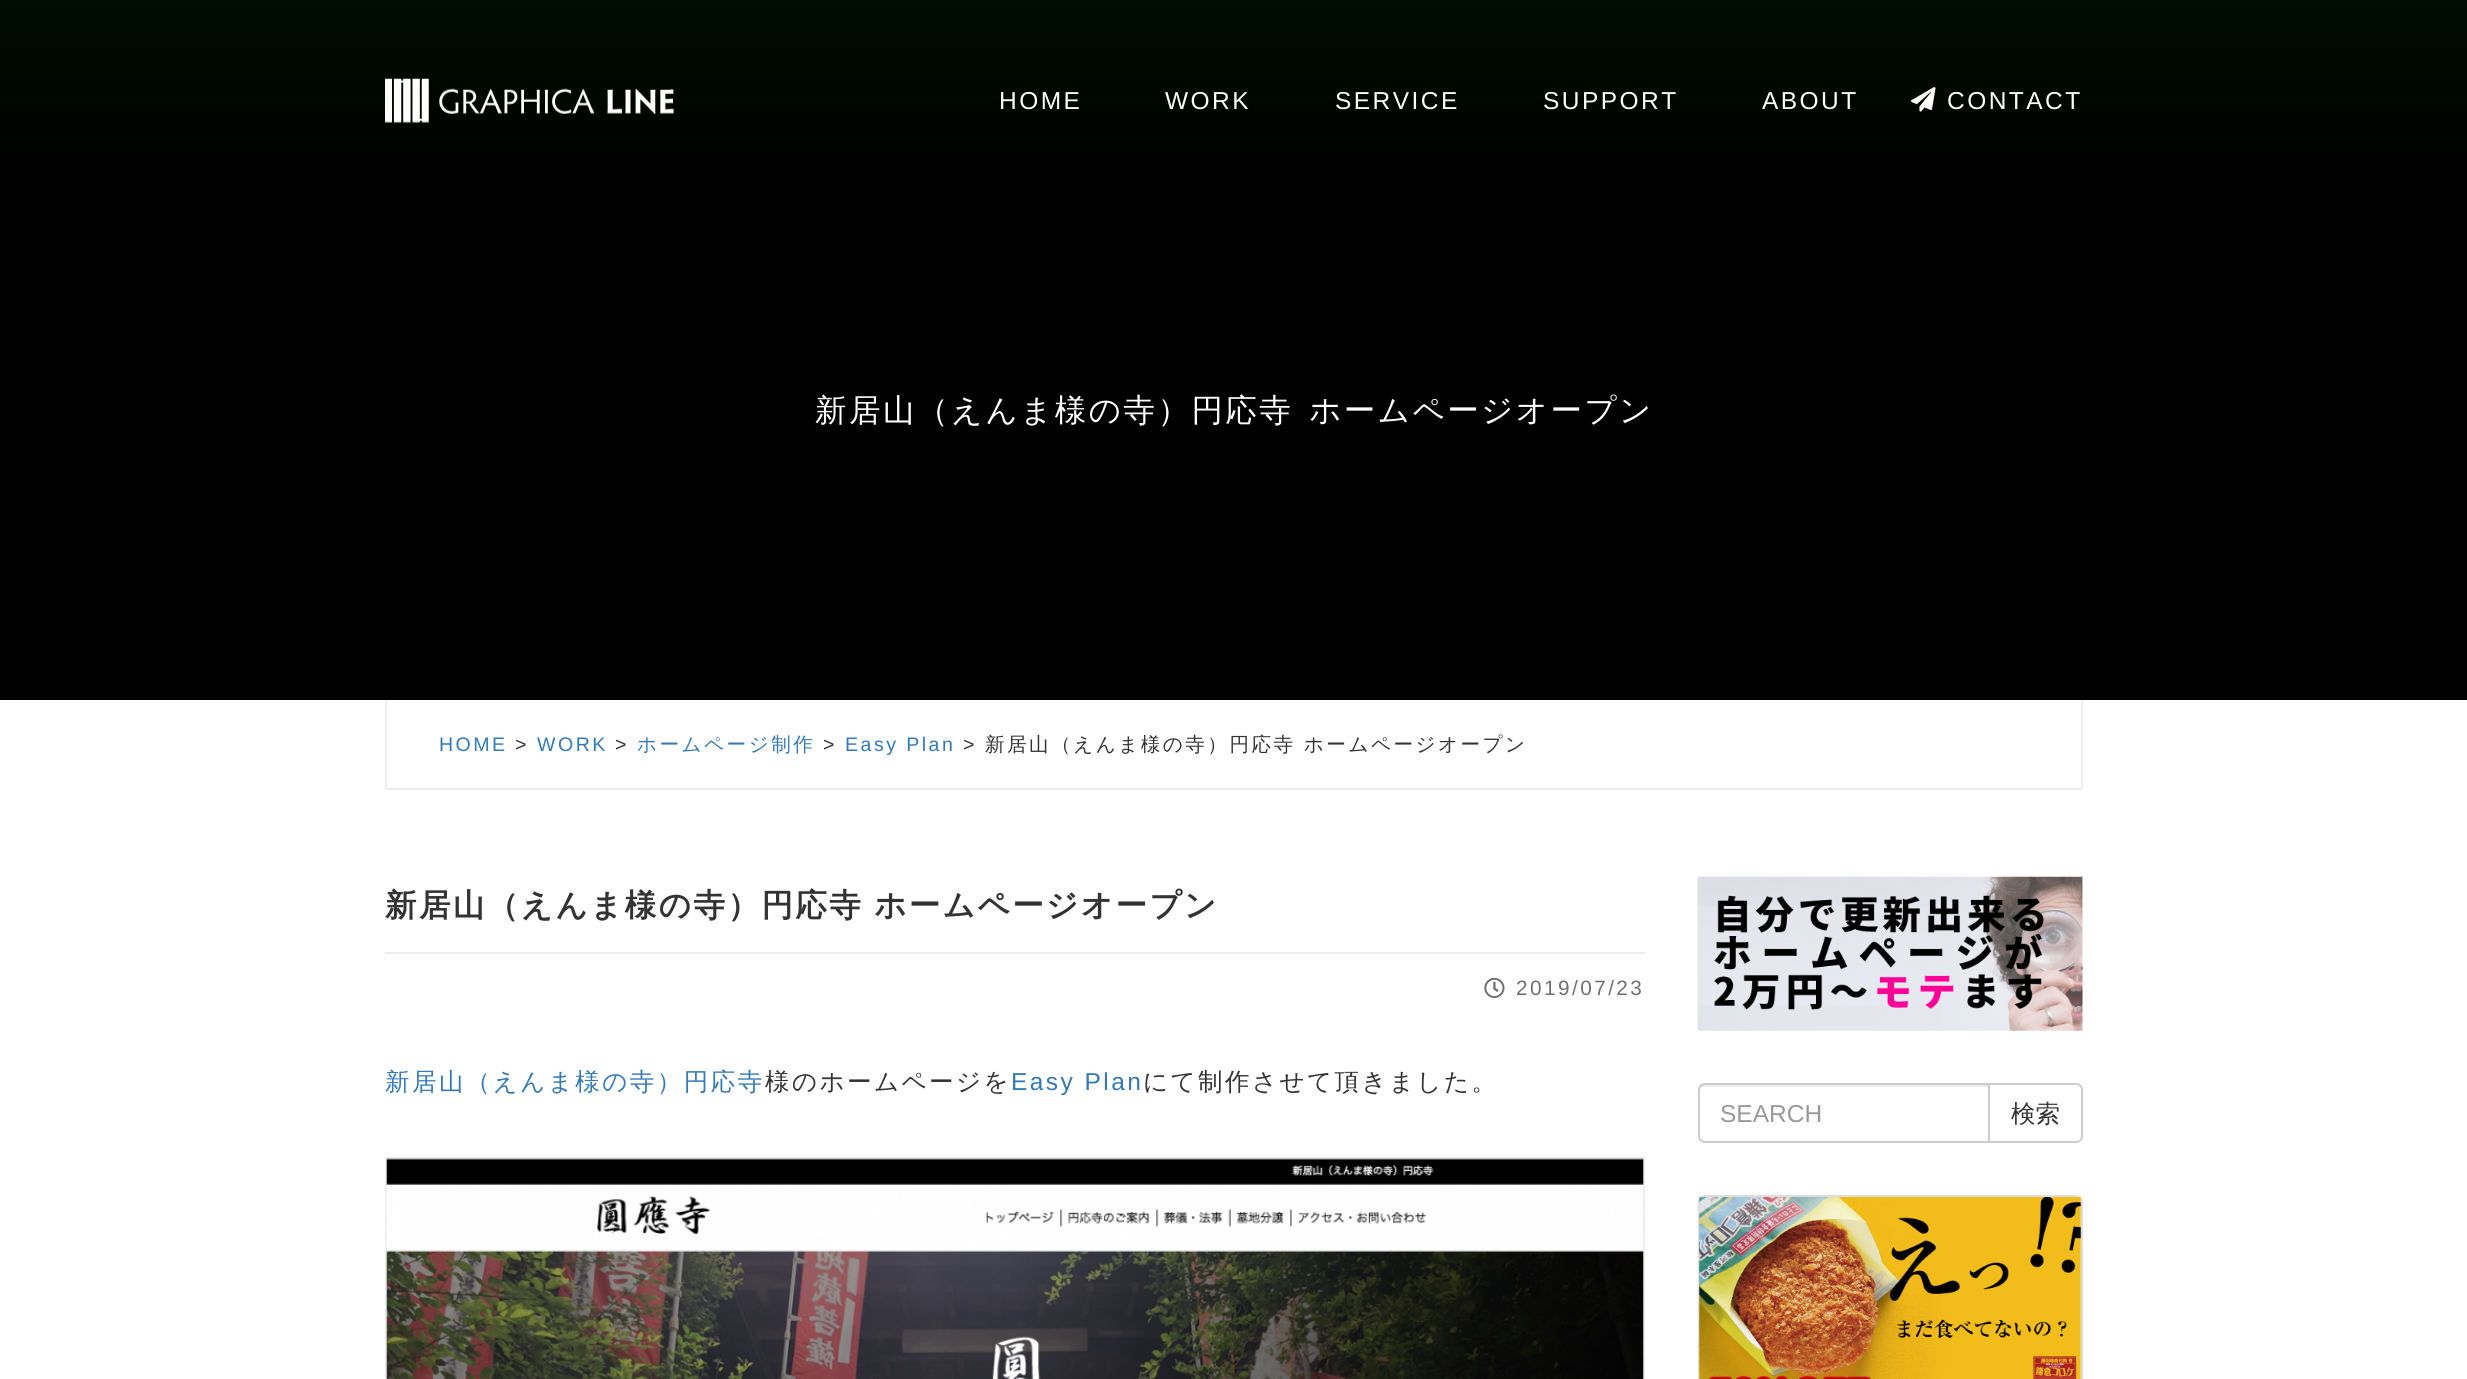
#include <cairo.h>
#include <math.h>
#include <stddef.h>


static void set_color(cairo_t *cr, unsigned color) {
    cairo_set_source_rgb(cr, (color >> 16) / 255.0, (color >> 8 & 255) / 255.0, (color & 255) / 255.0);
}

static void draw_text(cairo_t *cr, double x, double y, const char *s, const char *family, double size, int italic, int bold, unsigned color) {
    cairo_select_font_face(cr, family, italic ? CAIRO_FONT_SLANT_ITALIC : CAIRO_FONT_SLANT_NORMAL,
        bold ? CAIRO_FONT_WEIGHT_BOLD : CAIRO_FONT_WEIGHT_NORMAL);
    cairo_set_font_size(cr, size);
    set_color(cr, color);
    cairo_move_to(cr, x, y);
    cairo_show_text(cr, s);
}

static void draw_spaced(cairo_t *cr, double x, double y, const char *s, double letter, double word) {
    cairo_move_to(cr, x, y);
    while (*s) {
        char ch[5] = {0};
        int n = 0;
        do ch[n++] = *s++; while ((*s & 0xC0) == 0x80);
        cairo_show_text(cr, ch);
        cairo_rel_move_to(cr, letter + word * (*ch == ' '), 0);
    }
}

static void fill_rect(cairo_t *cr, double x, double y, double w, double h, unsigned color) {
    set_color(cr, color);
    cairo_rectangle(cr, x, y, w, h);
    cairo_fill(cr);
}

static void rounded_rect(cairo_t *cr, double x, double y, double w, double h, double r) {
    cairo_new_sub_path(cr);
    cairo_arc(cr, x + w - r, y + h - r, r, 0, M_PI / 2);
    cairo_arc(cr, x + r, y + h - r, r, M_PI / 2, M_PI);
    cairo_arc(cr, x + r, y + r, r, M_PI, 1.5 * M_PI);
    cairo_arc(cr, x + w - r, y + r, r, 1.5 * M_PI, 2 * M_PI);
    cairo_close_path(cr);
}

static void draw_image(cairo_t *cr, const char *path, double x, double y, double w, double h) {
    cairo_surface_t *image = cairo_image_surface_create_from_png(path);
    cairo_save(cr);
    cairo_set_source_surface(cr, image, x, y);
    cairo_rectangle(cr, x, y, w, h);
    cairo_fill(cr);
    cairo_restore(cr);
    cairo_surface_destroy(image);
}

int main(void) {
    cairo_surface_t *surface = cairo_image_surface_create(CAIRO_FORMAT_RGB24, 2467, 1379);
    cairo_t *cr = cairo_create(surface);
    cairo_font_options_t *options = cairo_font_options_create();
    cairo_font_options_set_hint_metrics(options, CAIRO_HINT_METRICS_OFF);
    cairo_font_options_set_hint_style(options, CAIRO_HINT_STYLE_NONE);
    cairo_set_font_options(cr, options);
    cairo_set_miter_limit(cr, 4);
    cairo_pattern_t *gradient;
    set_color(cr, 0xFFFFFF);
    cairo_paint(cr);
    gradient = cairo_pattern_create_linear(1234, 0, 1234, 175);
    cairo_pattern_add_color_stop_rgba(gradient, 0, 0, 0.051, 0, 1);
    cairo_pattern_add_color_stop_rgba(gradient, 1, 0, 0, 0, 1);
    cairo_set_source(cr, gradient);
    cairo_pattern_destroy(gradient);
    cairo_rectangle(cr, 0, 0, 2467, 175);
    cairo_fill(cr);
    draw_image(cr, "assets/img1.png", 385, 78, 289, 45);
    cairo_select_font_face(cr, "Liberation Sans", CAIRO_FONT_SLANT_NORMAL, CAIRO_FONT_WEIGHT_NORMAL);
    cairo_set_font_size(cr, 24.5);
    set_color(cr, 0xFFFFFF);
    draw_spaced(cr, 999, 109, "HOME", 2.45, 0);
    draw_spaced(cr, 1165, 109, "WORK", 2.45, 0);
    draw_spaced(cr, 1335, 109, "SERVICE", 2.45, 0);
    draw_spaced(cr, 1543, 109, "SUPPORT", 2.45, 0);
    draw_spaced(cr, 1762, 109, "ABOUT", 2.45, 0);
    draw_image(cr, "assets/img2.png", 1911, 87, 25, 25);
    draw_spaced(cr, 1947, 109, "CONTACT", 2.45, 0);
    fill_rect(cr, 0, 175, 2467, 525, 0x000000);
    cairo_select_font_face(cr, "WenQuanYi Zen Hei Medium", CAIRO_FONT_SLANT_NORMAL, CAIRO_FONT_WEIGHT_NORMAL);
    cairo_set_font_size(cr, 31.5);
    set_color(cr, 0xFFFFFF);
    draw_spaced(cr, 815, 421, "新居山（えんま様の寺）円応寺 ホームページオープン", 2.45, 4);
    fill_rect(cr, 2081, 700, 2, 89, 0xEEEEEE);
    fill_rect(cr, 385, 788, 1698, 2, 0xEEEEEE);
    fill_rect(cr, 385, 700, 2, 89, 0xEEEEEE);
    cairo_select_font_face(cr, "Liberation Sans", CAIRO_FONT_SLANT_NORMAL, CAIRO_FONT_WEIGHT_NORMAL);
    cairo_set_font_size(cr, 19.6);
    set_color(cr, 0x337AB7);
    draw_spaced(cr, 439, 751, "HOME", 2.45, 0);
    set_color(cr, 0x333333);
    draw_spaced(cr, 515, 751, ">", 2.45, 0);
    set_color(cr, 0x337AB7);
    draw_spaced(cr, 537, 751, "WORK", 2.45, 0);
    set_color(cr, 0x333333);
    draw_spaced(cr, 615, 751, ">", 2.45, 0);
    cairo_select_font_face(cr, "WenQuanYi Zen Hei Medium", CAIRO_FONT_SLANT_NORMAL, CAIRO_FONT_WEIGHT_NORMAL);
    set_color(cr, 0x337AB7);
    draw_spaced(cr, 637, 751, "ホームページ制作", 2.45, 0);
    cairo_select_font_face(cr, "Liberation Sans", CAIRO_FONT_SLANT_NORMAL, CAIRO_FONT_WEIGHT_NORMAL);
    set_color(cr, 0x333333);
    draw_spaced(cr, 823, 751, ">", 2.45, 0);
    set_color(cr, 0x337AB7);
    draw_spaced(cr, 845, 751, "Easy Plan", 2.45, 0);
    set_color(cr, 0x333333);
    draw_spaced(cr, 963, 751, ">", 2.45, 0);
    cairo_select_font_face(cr, "WenQuanYi Zen Hei Medium", CAIRO_FONT_SLANT_NORMAL, CAIRO_FONT_WEIGHT_NORMAL);
    draw_spaced(cr, 985, 751, "新居山（えんま様の寺）円応寺 ホームページオープン", 2.45, 0);
    cairo_select_font_face(cr, "WenQuanYi Zen Hei", CAIRO_FONT_SLANT_NORMAL, CAIRO_FONT_WEIGHT_BOLD);
    cairo_set_font_size(cr, 31.5);
    draw_spaced(cr, 385, 916, "新居山（えんま様の寺）円応寺 ホームページオープン", 2.45, -1);
    fill_rect(cr, 385, 952, 1260, 2, 0xEEEEEE);
    draw_image(cr, "assets/img3.png", 1484, 977, 21, 21);
    cairo_select_font_face(cr, "Liberation Sans", CAIRO_FONT_SLANT_NORMAL, CAIRO_FONT_WEIGHT_NORMAL);
    cairo_set_font_size(cr, 20.75);
    set_color(cr, 0x707070);
    draw_spaced(cr, 1516, 995, "2019/07/23", 2.45, 0);
    cairo_select_font_face(cr, "WenQuanYi Zen Hei Medium", CAIRO_FONT_SLANT_NORMAL, CAIRO_FONT_WEIGHT_NORMAL);
    cairo_set_font_size(cr, 24.5);
    set_color(cr, 0x337AB7);
    draw_spaced(cr, 385, 1090, "新居山（えんま様の寺）円応寺", 2.45, 0);
    set_color(cr, 0x333333);
    draw_spaced(cr, 765, 1090, "様のホームページを", 2.45, 0);
    cairo_select_font_face(cr, "Liberation Sans", CAIRO_FONT_SLANT_NORMAL, CAIRO_FONT_WEIGHT_NORMAL);
    set_color(cr, 0x337AB7);
    draw_spaced(cr, 1011, 1090, "Easy Plan", 2.45, 0);
    cairo_select_font_face(cr, "WenQuanYi Zen Hei Medium", CAIRO_FONT_SLANT_NORMAL, CAIRO_FONT_WEIGHT_NORMAL);
    set_color(cr, 0x333333);
    draw_spaced(cr, 1143, 1090, "にて制作させて頂きました。", 2.45, 0);
    cairo_rectangle(cr, 386, 1158, 1258, 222);
    set_color(cr, 0xECECEC);
    cairo_stroke(cr);
    draw_image(cr, "assets/img4.png", 386, 1158, 1258, 221);
    draw_image(cr, "assets/img5.png", 1697, 876, 386, 155);
    cairo_new_path(cr);
    cairo_move_to(cr, 1704, 1087);
    cairo_line_to(cr, 1988, 1087);
    cairo_line_to(cr, 1988, 1085);
    cairo_line_to(cr, 1703, 1085);
    cairo_curve_to(cr, 1699, 1086, 1699, 1089, 1699, 1092);
    cairo_curve_to(cr, 1699, 1089, 1702, 1087, 1704, 1087);
    cairo_close_path(cr);
    cairo_fill(cr);
    cairo_new_path(cr);
    cairo_move_to(cr, 1705, 1084);
    cairo_line_to(cr, 1989, 1084);
    cairo_line_to(cr, 1989, 1142);
    cairo_line_to(cr, 1705, 1142);
    cairo_curve_to(cr, 1701.5, 1142, 1699, 1139.5, 1699, 1136);
    cairo_line_to(cr, 1699, 1090);
    cairo_curve_to(cr, 1699, 1086.5, 1701.5, 1084, 1705, 1084);
    cairo_close_path(cr);
    set_color(cr, 0xCCCCCC);
    cairo_stroke(cr);
    draw_text(cr, 1720, 1122, "SEARCH", "Liberation Sans", 24.5, 0, 0, 0x999999);
    set_color(cr, 0xFFFFFF);
    cairo_new_path(cr);
    cairo_move_to(cr, 1989, 1084);
    cairo_line_to(cr, 2076, 1084);
    cairo_curve_to(cr, 2079.5, 1084, 2082, 1086.5, 2082, 1090);
    cairo_line_to(cr, 2082, 1136);
    cairo_curve_to(cr, 2082, 1139.5, 2079.5, 1142, 2076, 1142);
    cairo_line_to(cr, 1989, 1142);
    cairo_close_path(cr);
    cairo_fill_preserve(cr);
    set_color(cr, 0xCCCCCC);
    cairo_stroke(cr);
    draw_text(cr, 2011, 1122, "検索", "WenQuanYi Zen Hei Medium", 24.5, 0, 0, 0x333333);
    rounded_rect(cr, 1699, 1196, 383, 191, 6);
    set_color(cr, 0xDDDDDD);
    cairo_stroke(cr);
    draw_image(cr, "assets/img6.png", 1699, 1197, 382, 182);
    cairo_surface_write_to_png(surface, "output.png");
    cairo_font_options_destroy(options);
    cairo_destroy(cr);
    cairo_surface_destroy(surface);
    return 0;
}
